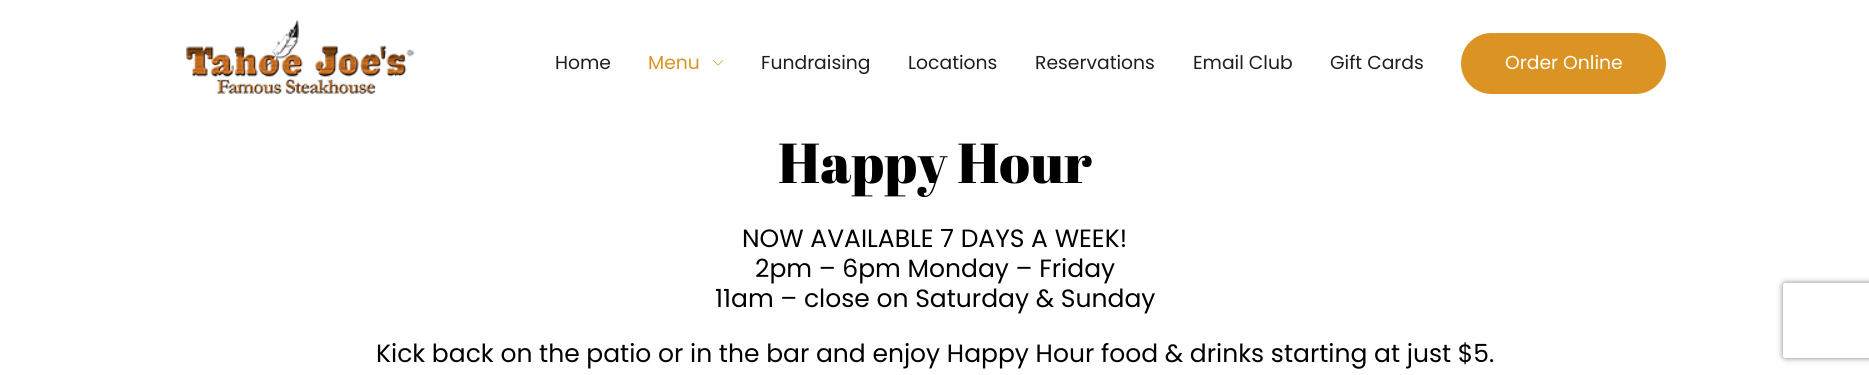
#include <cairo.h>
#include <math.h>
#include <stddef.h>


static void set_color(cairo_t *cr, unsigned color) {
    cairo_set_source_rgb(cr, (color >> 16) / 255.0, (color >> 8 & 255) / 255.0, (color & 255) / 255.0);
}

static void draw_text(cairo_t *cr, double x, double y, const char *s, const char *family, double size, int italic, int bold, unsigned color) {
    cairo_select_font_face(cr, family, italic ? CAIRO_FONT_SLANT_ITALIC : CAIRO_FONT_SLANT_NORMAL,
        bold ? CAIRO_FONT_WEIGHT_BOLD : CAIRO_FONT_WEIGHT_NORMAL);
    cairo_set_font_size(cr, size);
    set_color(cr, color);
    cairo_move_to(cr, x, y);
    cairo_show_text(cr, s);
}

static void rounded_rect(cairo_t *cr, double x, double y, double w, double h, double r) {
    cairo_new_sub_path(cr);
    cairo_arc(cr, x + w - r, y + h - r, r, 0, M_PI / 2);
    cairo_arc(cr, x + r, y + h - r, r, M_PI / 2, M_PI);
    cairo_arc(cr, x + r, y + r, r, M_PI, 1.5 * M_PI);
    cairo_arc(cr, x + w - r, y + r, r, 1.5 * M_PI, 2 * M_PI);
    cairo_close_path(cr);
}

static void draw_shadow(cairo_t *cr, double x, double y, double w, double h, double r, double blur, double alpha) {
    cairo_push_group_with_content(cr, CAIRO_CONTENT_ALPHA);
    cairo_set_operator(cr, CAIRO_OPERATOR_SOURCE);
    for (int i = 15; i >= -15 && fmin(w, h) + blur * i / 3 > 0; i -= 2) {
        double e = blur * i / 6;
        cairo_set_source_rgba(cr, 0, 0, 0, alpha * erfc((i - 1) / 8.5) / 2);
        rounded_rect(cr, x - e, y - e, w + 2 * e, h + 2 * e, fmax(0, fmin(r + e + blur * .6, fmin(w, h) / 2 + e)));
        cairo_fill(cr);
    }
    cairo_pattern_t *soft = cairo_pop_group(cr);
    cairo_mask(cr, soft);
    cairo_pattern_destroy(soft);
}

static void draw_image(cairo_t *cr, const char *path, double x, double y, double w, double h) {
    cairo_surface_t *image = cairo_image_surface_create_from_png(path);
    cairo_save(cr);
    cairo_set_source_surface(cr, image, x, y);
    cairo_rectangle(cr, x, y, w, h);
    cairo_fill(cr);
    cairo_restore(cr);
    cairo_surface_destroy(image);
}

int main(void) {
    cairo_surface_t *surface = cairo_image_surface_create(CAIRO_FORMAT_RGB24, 1869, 375);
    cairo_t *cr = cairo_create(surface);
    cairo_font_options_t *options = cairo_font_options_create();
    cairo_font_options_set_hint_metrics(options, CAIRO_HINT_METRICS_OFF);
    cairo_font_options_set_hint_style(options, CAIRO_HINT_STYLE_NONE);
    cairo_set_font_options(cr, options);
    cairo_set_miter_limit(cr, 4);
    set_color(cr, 0xFFFFFF);
    cairo_paint(cr);
    draw_image(cr, "assets/img1.png", 186, 19, 228, 75);
    draw_text(cr, 555, 69, "Home", "Poppins", 18.75, 0, 0, 0x1D1D23);
    draw_text(cr, 648, 69, "Menu", "Poppins", 18.75, 0, 0, 0xDB9423);
    draw_image(cr, "assets/img2.png", 713, 60, 11, 6);
    draw_text(cr, 761, 69, "Fundraising", "Poppins", 18.75, 0, 0, 0x1D1D23);
    draw_text(cr, 908, 69, "Locations", "Poppins", 18.75, 0, 0, 0x1D1D23);
    draw_text(cr, 1035, 69, "Reservations", "Poppins", 18.75, 0, 0, 0x1D1D23);
    draw_text(cr, 1193, 69, "Email Club", "Poppins", 18.75, 0, 0, 0x1D1D23);
    draw_text(cr, 1330, 69, "Gift Cards", "Poppins", 18.75, 0, 0, 0x1D1D23);
    set_color(cr, 0xDB9423);
    rounded_rect(cr, 1461, 33, 205, 61, 30.5);
    cairo_fill(cr);
    draw_text(cr, 1505, 69, "Order Online", "Poppins", 18.75, 0, 0, 0xFFFFFF);
    draw_text(cr, 778, 183, "Happy Hour", "Abril Fatface", 56.25, 0, 0, 0x000000);
    draw_text(cr, 742, 247, "NOW AVAILABLE 7 DAYS A WEEK!", "Poppins", 25, 0, 0, 0x000000);
    draw_text(cr, 755, 277, "2pm – 6pm Monday – Friday", "Poppins", 25, 0, 0, 0x000000);
    draw_text(cr, 715, 307, "11am – close on Saturday & Sunday", "Poppins", 25, 0, 0, 0x000000);
    draw_text(cr, 376, 362, "Kick back on the patio or in the bar and enjoy Happy Hour food & drinks starting at just $5.", "Poppins", 25, 0, 0, 0x000000);
    cairo_save(cr);
    cairo_set_fill_rule(cr, CAIRO_FILL_RULE_EVEN_ODD);
    cairo_new_path(cr);
    cairo_move_to(cr, 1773, 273);
    cairo_line_to(cr, 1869, 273);
    cairo_line_to(cr, 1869, 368);
    cairo_line_to(cr, 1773, 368);
    cairo_close_path(cr);
    cairo_move_to(cr, 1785.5, 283);
    cairo_line_to(cr, 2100.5, 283);
    cairo_curve_to(cr, 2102, 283, 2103, 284, 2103, 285.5);
    cairo_line_to(cr, 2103, 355.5);
    cairo_curve_to(cr, 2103, 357, 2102, 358, 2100.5, 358);
    cairo_line_to(cr, 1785.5, 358);
    cairo_curve_to(cr, 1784, 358, 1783, 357, 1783, 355.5);
    cairo_line_to(cr, 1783, 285.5);
    cairo_curve_to(cr, 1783, 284, 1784, 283, 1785.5, 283);
    cairo_close_path(cr);
    cairo_clip(cr);
    set_color(cr, 0x808080);
    draw_shadow(cr, 1783, 283, 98, 75, 2.5, 3, 1);
    cairo_restore(cr);
    cairo_surface_write_to_png(surface, "output.png");
    cairo_font_options_destroy(options);
    cairo_destroy(cr);
    cairo_surface_destroy(surface);
    return 0;
}
